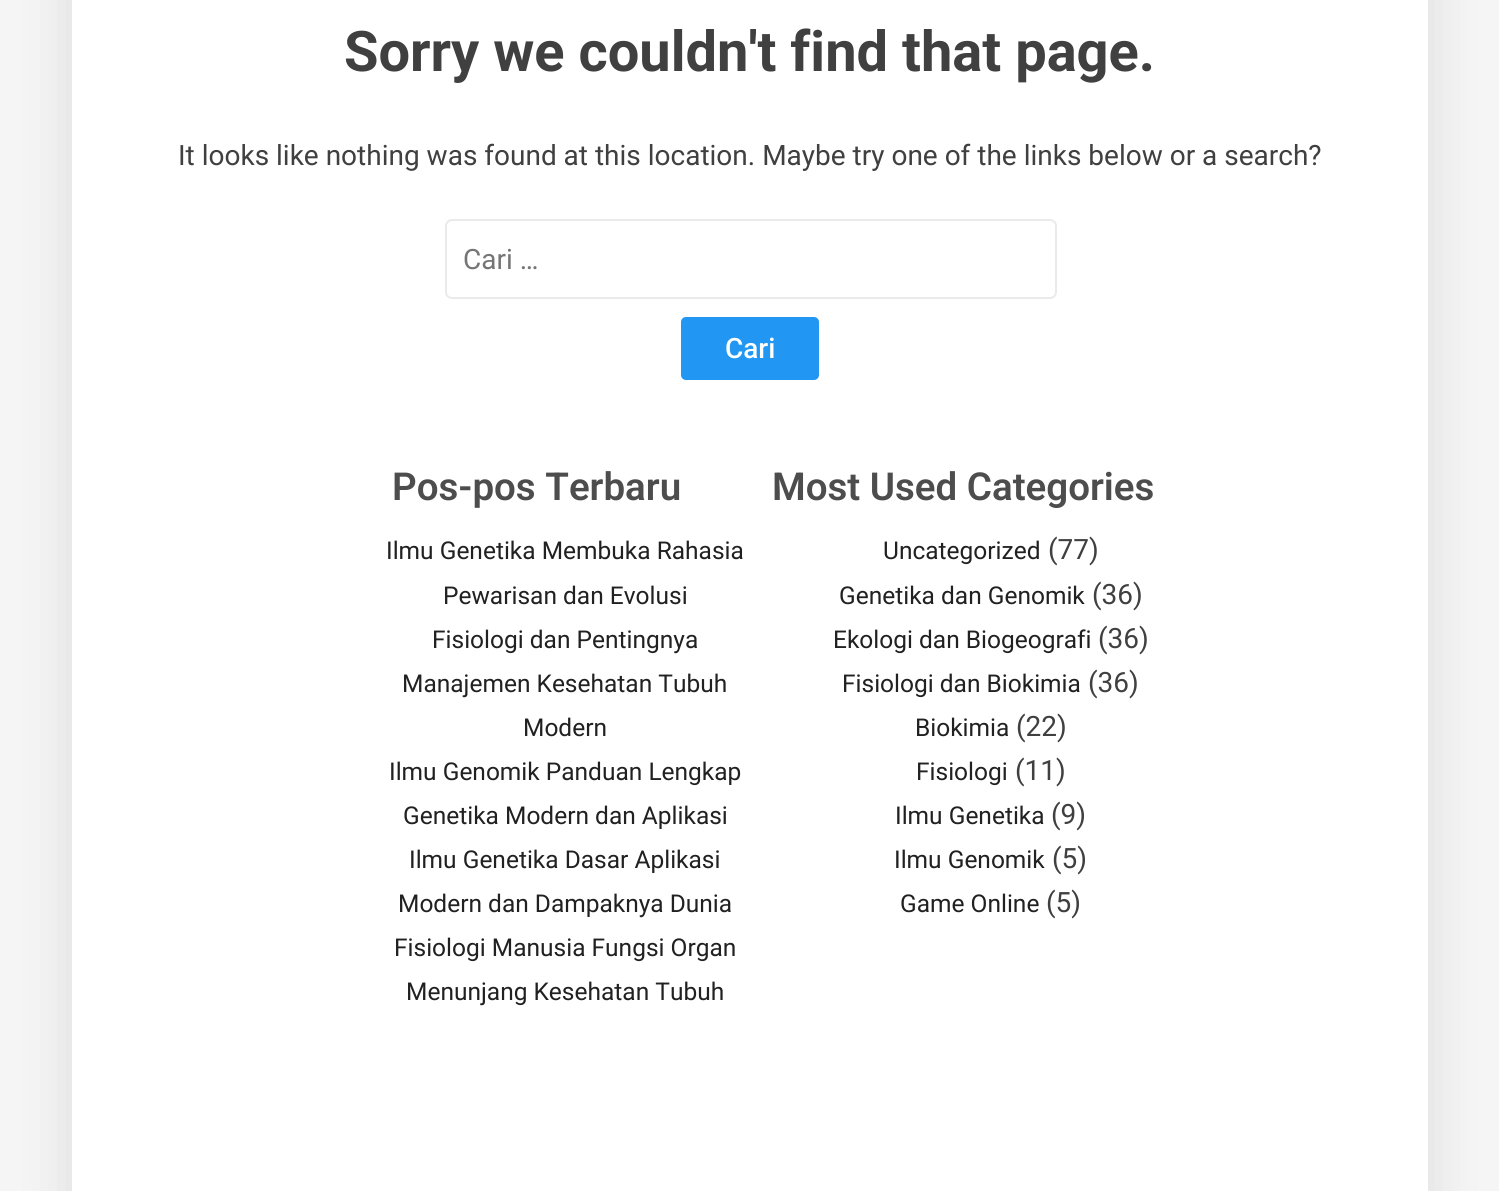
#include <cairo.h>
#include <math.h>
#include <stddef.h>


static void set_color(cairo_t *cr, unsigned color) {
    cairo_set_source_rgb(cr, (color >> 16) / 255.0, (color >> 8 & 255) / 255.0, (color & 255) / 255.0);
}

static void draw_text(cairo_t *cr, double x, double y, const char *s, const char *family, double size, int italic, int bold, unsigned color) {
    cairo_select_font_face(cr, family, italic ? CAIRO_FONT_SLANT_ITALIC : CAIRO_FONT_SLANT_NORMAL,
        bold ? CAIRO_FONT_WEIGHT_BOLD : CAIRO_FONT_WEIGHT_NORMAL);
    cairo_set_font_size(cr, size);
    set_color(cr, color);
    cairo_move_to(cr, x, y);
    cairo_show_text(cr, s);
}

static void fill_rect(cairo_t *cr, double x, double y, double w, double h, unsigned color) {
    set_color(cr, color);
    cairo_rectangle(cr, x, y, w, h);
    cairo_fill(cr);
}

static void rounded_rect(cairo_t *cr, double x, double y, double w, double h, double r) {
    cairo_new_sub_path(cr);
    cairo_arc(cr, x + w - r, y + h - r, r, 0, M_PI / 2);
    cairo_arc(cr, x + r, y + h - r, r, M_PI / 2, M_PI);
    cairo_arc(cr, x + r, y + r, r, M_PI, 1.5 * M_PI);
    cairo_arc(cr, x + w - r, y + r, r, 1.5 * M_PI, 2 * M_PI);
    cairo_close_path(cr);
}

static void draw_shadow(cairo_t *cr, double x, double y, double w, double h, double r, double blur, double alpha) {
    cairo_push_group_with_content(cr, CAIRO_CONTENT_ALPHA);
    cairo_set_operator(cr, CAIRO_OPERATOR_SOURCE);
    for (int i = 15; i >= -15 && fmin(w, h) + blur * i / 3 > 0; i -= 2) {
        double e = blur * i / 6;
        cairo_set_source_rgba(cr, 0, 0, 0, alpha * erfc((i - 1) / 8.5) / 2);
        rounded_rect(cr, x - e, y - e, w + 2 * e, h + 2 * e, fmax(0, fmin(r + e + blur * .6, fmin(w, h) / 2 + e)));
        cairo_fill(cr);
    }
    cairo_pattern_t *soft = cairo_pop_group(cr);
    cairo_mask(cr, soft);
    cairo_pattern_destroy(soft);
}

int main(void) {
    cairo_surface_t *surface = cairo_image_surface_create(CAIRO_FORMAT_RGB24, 1499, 1191);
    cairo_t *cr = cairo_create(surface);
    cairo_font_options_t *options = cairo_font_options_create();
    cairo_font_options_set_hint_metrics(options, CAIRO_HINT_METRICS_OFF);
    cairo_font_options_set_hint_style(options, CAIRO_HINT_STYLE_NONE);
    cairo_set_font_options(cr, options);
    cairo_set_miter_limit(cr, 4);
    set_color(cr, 0xF5F5F5);
    cairo_paint(cr);
    set_color(cr, 0x000000);
    draw_shadow(cr, 70, -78, 1360, 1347, 0, 26, 0.1);
    fill_rect(cr, 72, 0, 1356, 1191, 0xFFFFFF);
    draw_text(cr, 344, 71, "Sorry we couldn't find that page.", "Roboto", 56, 0, 1, 0x404040);
    draw_text(cr, 178, 165, "It looks like nothing was found at this location. Maybe try one of the links below or a search?", "Roboto", 28, 0, 0, 0x404040);
    rounded_rect(cr, 446, 220, 610, 78, 6);
    set_color(cr, 0xEAEAEA);
    cairo_stroke(cr);
    draw_text(cr, 463, 269, "Cari …", "Roboto", 28, 0, 0, 0x757575);
    set_color(cr, 0x2196F3);
    rounded_rect(cr, 681, 317, 138, 63, 5);
    cairo_fill(cr);
    draw_text(cr, 725, 358, "Cari", "Roboto Medium", 28, 0, 0, 0xFFFFFF);
    draw_text(cr, 392, 500, "Pos-pos Terbaru", "Roboto SemiBold", 38.5, 0, 0, 0x4D4D4D);
    draw_text(cr, 386, 559, "Ilmu Genetika Membuka Rahasia", "Roboto", 24.5, 0, 0, 0x212121);
    draw_text(cr, 443, 604, "Pewarisan dan Evolusi", "Roboto", 24.5, 0, 0, 0x212121);
    draw_text(cr, 432, 648, "Fisiologi dan Pentingnya", "Roboto", 24.5, 0, 0, 0x212121);
    draw_text(cr, 402, 692, "Manajemen Kesehatan Tubuh", "Roboto", 24.5, 0, 0, 0x212121);
    draw_text(cr, 523, 736, "Modern", "Roboto", 24.5, 0, 0, 0x212121);
    draw_text(cr, 389, 780, "Ilmu Genomik Panduan Lengkap", "Roboto", 24.5, 0, 0, 0x212121);
    draw_text(cr, 403, 824, "Genetika Modern dan Aplikasi", "Roboto", 24.5, 0, 0, 0x212121);
    draw_text(cr, 409, 868, "Ilmu Genetika Dasar Aplikasi", "Roboto", 24.5, 0, 0, 0x212121);
    draw_text(cr, 398, 912, "Modern dan Dampaknya Dunia", "Roboto", 24.5, 0, 0, 0x212121);
    draw_text(cr, 394, 956, "Fisiologi Manusia Fungsi Organ", "Roboto", 24.5, 0, 0, 0x212121);
    draw_text(cr, 406, 1000, "Menunjang Kesehatan Tubuh", "Roboto", 24.5, 0, 0, 0x212121);
    draw_text(cr, 772, 500, "Most Used Categories", "Roboto SemiBold", 38.5, 0, 0, 0x4D4D4D);
    draw_text(cr, 883, 559, "Uncategorized", "Roboto", 24.5, 0, 0, 0x212121);
    draw_text(cr, 1048, 559, "(77)", "Roboto", 28, 0, 0, 0x404040);
    draw_text(cr, 839, 604, "Genetika dan Genomik", "Roboto", 24.5, 0, 0, 0x212121);
    draw_text(cr, 1092, 604, "(36)", "Roboto", 28, 0, 0, 0x404040);
    draw_text(cr, 833, 648, "Ekologi dan Biogeografi", "Roboto", 24.5, 0, 0, 0x212121);
    draw_text(cr, 1098, 648, "(36)", "Roboto", 28, 0, 0, 0x404040);
    draw_text(cr, 842, 692, "Fisiologi dan Biokimia", "Roboto", 24.5, 0, 0, 0x212121);
    draw_text(cr, 1088, 692, "(36)", "Roboto", 28, 0, 0, 0x404040);
    draw_text(cr, 915, 736, "Biokimia", "Roboto", 24.5, 0, 0, 0x212121);
    draw_text(cr, 1016, 736, "(22)", "Roboto", 28, 0, 0, 0x404040);
    draw_text(cr, 916, 780, "Fisiologi", "Roboto", 24.5, 0, 0, 0x212121);
    draw_text(cr, 1015, 780, "(11)", "Roboto", 28, 0, 0, 0x404040);
    draw_text(cr, 895, 824, "Ilmu Genetika", "Roboto", 24.5, 0, 0, 0x212121);
    draw_text(cr, 1051, 824, "(9)", "Roboto", 28, 0, 0, 0x404040);
    draw_text(cr, 894, 868, "Ilmu Genomik", "Roboto", 24.5, 0, 0, 0x212121);
    draw_text(cr, 1052, 868, "(5)", "Roboto", 28, 0, 0, 0x404040);
    draw_text(cr, 900, 912, "Game Online", "Roboto", 24.5, 0, 0, 0x212121);
    draw_text(cr, 1046, 912, "(5)", "Roboto", 28, 0, 0, 0x404040);
    cairo_surface_write_to_png(surface, "output.png");
    cairo_font_options_destroy(options);
    cairo_destroy(cr);
    cairo_surface_destroy(surface);
    return 0;
}
